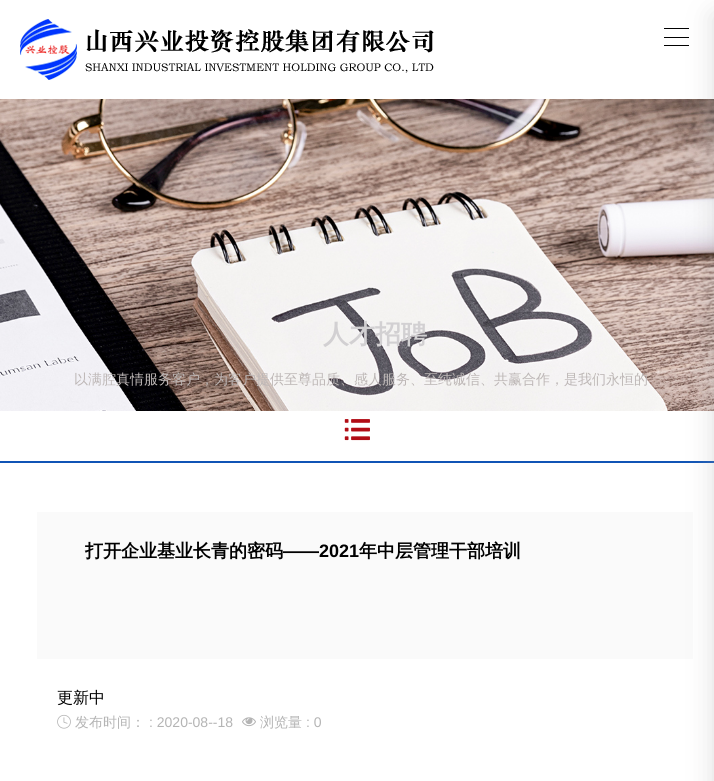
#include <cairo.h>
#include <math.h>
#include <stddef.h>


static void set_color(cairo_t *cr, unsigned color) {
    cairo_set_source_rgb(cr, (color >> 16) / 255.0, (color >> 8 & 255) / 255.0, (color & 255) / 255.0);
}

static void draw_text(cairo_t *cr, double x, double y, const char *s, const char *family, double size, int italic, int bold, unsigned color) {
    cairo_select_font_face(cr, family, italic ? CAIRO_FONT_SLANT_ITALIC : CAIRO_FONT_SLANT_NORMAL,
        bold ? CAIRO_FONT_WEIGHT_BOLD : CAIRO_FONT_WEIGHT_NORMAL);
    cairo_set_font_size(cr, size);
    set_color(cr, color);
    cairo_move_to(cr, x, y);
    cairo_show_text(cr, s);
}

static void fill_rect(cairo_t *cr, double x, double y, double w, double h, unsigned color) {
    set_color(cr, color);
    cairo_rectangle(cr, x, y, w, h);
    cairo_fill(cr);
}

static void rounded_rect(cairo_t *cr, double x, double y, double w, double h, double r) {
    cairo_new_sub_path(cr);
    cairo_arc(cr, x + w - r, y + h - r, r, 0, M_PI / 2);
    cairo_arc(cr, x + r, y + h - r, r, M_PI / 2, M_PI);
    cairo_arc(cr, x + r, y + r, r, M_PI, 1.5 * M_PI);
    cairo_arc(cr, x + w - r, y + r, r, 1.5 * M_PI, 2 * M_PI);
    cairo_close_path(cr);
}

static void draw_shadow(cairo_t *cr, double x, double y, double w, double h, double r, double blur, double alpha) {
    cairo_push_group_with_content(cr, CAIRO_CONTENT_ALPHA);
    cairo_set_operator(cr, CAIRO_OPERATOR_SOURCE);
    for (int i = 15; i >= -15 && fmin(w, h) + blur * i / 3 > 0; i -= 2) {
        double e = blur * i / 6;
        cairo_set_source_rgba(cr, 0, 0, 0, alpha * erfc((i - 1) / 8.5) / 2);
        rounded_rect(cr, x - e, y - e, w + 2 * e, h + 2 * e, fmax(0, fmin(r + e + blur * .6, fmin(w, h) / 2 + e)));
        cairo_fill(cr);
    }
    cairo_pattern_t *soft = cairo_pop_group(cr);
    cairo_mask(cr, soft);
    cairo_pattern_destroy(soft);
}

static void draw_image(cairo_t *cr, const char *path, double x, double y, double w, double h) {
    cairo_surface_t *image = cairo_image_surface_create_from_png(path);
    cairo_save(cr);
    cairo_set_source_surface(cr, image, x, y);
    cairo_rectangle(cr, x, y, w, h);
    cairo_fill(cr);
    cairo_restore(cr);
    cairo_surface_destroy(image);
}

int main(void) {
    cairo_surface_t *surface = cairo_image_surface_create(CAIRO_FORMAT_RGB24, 714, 781);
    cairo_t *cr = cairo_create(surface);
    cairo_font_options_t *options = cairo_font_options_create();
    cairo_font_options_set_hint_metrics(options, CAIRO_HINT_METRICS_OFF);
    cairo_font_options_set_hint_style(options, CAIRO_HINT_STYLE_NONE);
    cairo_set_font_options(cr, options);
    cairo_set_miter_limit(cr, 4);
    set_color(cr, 0xFFFFFF);
    cairo_paint(cr);
    draw_image(cr, "assets/img1.png", 20, 19, 414, 61);
    fill_rect(cr, 664, 37, 25, 1, 0x000000);
    fill_rect(cr, 664, 28, 25, 1, 0x000000);
    fill_rect(cr, 664, 45, 25, 1, 0x000000);
    draw_image(cr, "assets/img2.png", 0, 99, 714, 312);
    fill_rect(cr, 0, 461, 714, 2, 0x1054B5);
    fill_rect(cr, 37, 512, 656, 147, 0xFAFAFA);
    set_color(cr, 0xA7A5A5);
    draw_shadow(cr, 714, 15, 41, 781, 0, 13.5, 0.38);
    draw_text(cr, 323, 343, "人才招聘", "WenQuanYi Zen Hei", 26, 0, 1, 0xD2D0D2);
    draw_text(cr, 74, 384, "以满腔真情服务客户，为客户提供至尊品质、感人服务、至纯诚信、共赢合作，是我们永恒的", "WenQuanYi Zen Hei Medium", 14, 0, 0, 0xBDB7B6);
    draw_image(cr, "assets/img3.png", 344, 419, 26, 22);
    draw_text(cr, 85, 557, "打开企业基业长青的密码", "WenQuanYi Zen Hei", 18, 0, 1, 0x000000);
    draw_text(cr, 283, 557, "——2021", "Liberation Sans", 18, 0, 1, 0x000000);
    draw_text(cr, 359, 557, "年中层管理干部培训", "WenQuanYi Zen Hei", 18, 0, 1, 0x000000);
    draw_text(cr, 57, 703, "更新中", "WenQuanYi Zen Hei Medium", 16, 0, 0, 0x000000);
    draw_image(cr, "assets/img4.png", 57, 714, 14, 15);
    draw_text(cr, 75, 727, "发布时间：", "WenQuanYi Zen Hei Medium", 14, 0, 0, 0xB4B4B4);
    draw_text(cr, 149, 727, ": 2020-08--18", "Liberation Sans", 14, 0, 0, 0xB4B4B4);
    draw_image(cr, "assets/img5.png", 242, 717, 14, 10);
    draw_text(cr, 260, 727, "浏览量", "WenQuanYi Zen Hei Medium", 14, 0, 0, 0xB4B4B4);
    draw_text(cr, 306, 727, ": 0", "Liberation Sans", 14, 0, 0, 0xB4B4B4);
    cairo_surface_write_to_png(surface, "output.png");
    cairo_font_options_destroy(options);
    cairo_destroy(cr);
    cairo_surface_destroy(surface);
    return 0;
}
